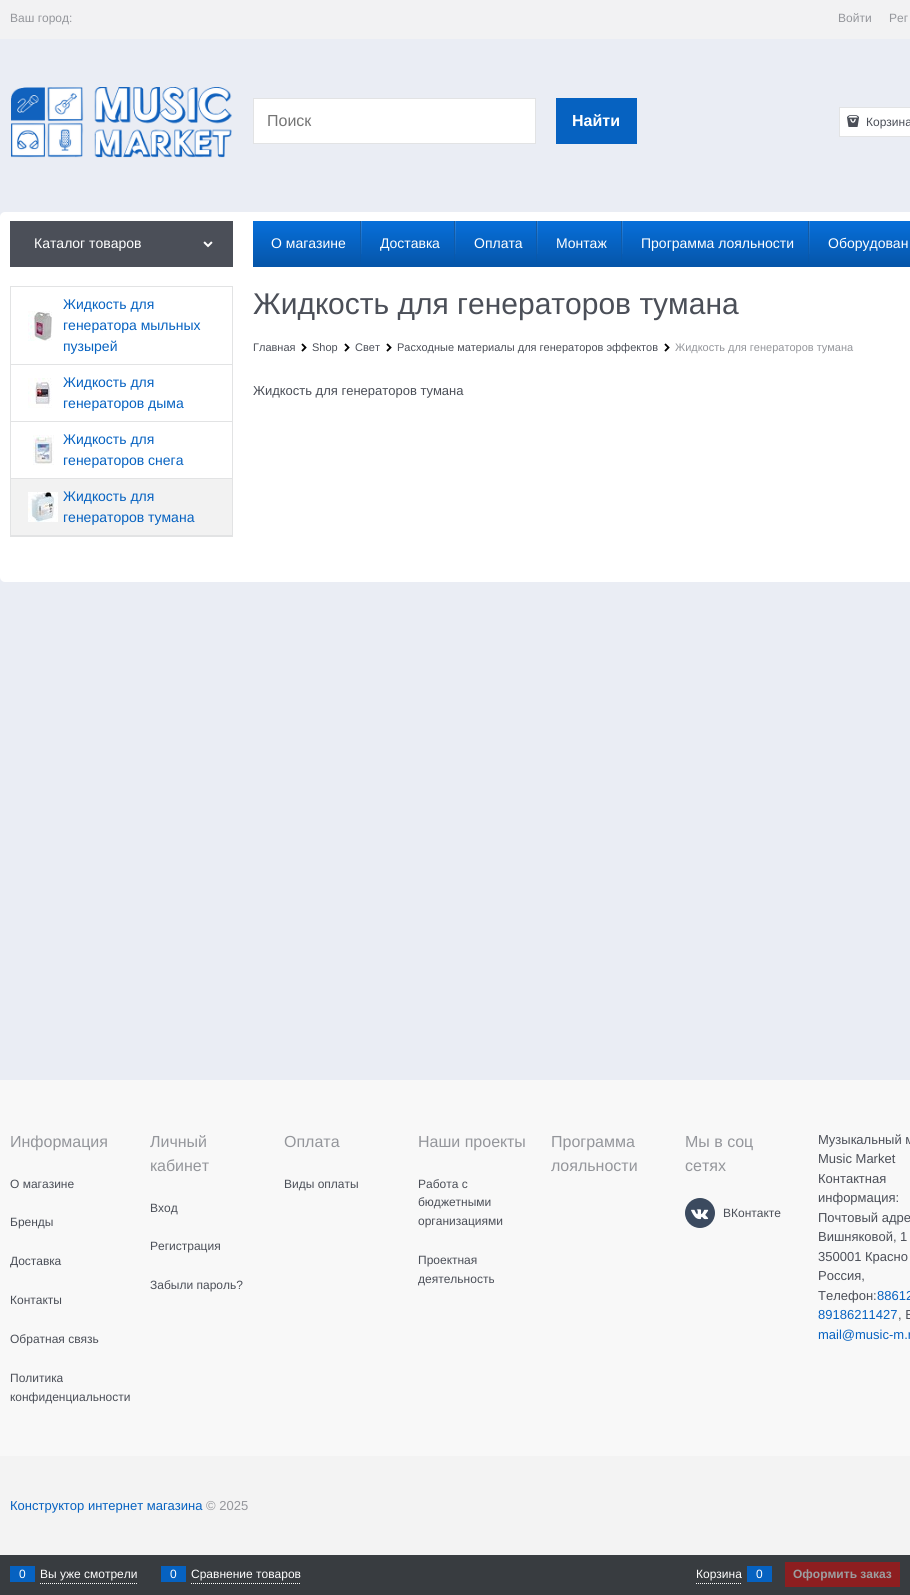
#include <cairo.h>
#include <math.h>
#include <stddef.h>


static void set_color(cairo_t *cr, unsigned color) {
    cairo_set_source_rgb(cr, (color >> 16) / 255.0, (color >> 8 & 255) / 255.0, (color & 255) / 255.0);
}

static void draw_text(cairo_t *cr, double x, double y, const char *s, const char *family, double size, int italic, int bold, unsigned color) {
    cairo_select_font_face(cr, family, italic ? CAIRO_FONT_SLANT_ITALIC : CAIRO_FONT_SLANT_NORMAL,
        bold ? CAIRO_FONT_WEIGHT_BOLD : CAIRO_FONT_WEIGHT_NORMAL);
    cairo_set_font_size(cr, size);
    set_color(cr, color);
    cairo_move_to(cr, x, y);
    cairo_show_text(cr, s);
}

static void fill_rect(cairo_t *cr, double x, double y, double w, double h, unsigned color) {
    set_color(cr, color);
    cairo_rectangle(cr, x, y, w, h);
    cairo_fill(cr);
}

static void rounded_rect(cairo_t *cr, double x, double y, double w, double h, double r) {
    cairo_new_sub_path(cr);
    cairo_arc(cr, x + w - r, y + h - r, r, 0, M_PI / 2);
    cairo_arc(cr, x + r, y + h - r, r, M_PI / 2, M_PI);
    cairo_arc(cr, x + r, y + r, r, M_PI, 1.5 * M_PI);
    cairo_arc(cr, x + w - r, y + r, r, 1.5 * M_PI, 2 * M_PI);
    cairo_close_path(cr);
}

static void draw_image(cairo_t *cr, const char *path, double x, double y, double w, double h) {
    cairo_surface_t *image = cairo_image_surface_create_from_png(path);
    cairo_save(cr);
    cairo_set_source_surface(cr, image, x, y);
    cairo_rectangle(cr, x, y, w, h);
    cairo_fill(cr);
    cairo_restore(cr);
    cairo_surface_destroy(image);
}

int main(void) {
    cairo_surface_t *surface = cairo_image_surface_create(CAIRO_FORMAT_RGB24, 910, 1595);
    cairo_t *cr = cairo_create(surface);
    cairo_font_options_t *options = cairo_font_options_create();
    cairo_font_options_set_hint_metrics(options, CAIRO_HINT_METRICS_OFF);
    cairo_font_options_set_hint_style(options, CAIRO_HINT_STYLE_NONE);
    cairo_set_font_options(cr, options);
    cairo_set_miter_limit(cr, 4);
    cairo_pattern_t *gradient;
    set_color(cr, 0xEAEDF4);
    cairo_paint(cr);
    fill_rect(cr, 0, 0, 910, 39, 0xF2F2F3);
    draw_text(cr, 10, 22, "Ваш город:", "Liberation Sans", 12, 0, 0, 0x94969B);
    draw_text(cr, 838, 22, "Войти", "Liberation Sans", 12, 0, 0, 0x94969B);
    draw_text(cr, 889, 22, "Рег", "Liberation Sans", 12, 0, 0, 0x94969B);
    draw_image(cr, "assets/img1.png", 11, 87, 221, 71);
    set_color(cr, 0xFFFFFF);
    cairo_rectangle(cr, 253.5, 98.5, 282, 45);
    cairo_fill_preserve(cr);
    set_color(cr, 0xE2E3E4);
    cairo_set_line_width(cr, 1);
    cairo_stroke(cr);
    draw_text(cr, 267, 126, "Поиск", "Liberation Sans", 16, 0, 0, 0x757575);
    fill_rect(cr, 556, 98, 81, 46, 0x0662C1);
    draw_text(cr, 572, 126, "Найти", "Liberation Sans", 16, 0, 1, 0xFFFFFF);
    cairo_rectangle(cr, 839.5, 107.5, 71, 29);
    cairo_fill_preserve(cr);
    set_color(cr, 0xE2E3E4);
    cairo_stroke(cr);
    draw_image(cr, "assets/img2.png", 847, 115, 12, 12);
    draw_text(cr, 866, 126, "Корзина", "Liberation Sans", 12, 0, 0, 0x4B4F58);
    set_color(cr, 0xFFFFFF);
    rounded_rect(cr, 0, 212, 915, 370, 5);
    cairo_fill(cr);
    fill_rect(cr, 10, 221, 223, 46, 0x4B4F58);
    draw_text(cr, 34, 248, "Каталог товаров", "Liberation Sans", 14, 0, 0, 0xFFFFFF);
    draw_image(cr, "assets/img3.png", 203, 241, 10, 7);
    gradient = cairo_pattern_create_linear(607, 221, 607, 267);
    cairo_pattern_add_color_stop_rgba(gradient, 0, 0.027, 0.435, 0.855, 1);
    cairo_pattern_add_color_stop_rgba(gradient, 0.5, 0.024, 0.384, 0.757, 1);
    cairo_pattern_add_color_stop_rgba(gradient, 1, 0.02, 0.333, 0.659, 1);
    cairo_set_source(cr, gradient);
    cairo_pattern_destroy(gradient);
    cairo_rectangle(cr, 253, 221, 657, 46);
    cairo_fill(cr);
    draw_text(cr, 271, 248, "О магазине", "Liberation Sans", 14, 0, 0, 0xFFFFFF);
    gradient = cairo_pattern_create_linear(362, 221, 362, 267);
    cairo_pattern_add_color_stop_rgba(gradient, 0, 1, 1, 1, 0.14);
    cairo_pattern_add_color_stop_rgba(gradient, 0.72, 1, 1, 1, 0.02);
    cairo_pattern_add_color_stop_rgba(gradient, 1, 1, 1, 1, 0);
    cairo_set_source(cr, gradient);
    cairo_pattern_destroy(gradient);
    cairo_rectangle(cr, 361, 221, 1, 33);
    cairo_fill(cr);
    gradient = cairo_pattern_create_linear(361, 221, 361, 267);
    cairo_pattern_add_color_stop_rgba(gradient, 0, 0.224, 0.224, 0.224, 0.39);
    cairo_pattern_add_color_stop_rgba(gradient, 0.17, 0.224, 0.224, 0.224, 0.33);
    cairo_pattern_add_color_stop_rgba(gradient, 0.61, 0.224, 0.224, 0.224, 0.12);
    cairo_pattern_add_color_stop_rgba(gradient, 0.96, 0.224, 0.224, 0.224, 0.01);
    cairo_pattern_add_color_stop_rgba(gradient, 0.98, 1, 1, 1, 0.01);
    cairo_pattern_add_color_stop_rgba(gradient, 1, 1, 1, 1, 0);
    cairo_set_source(cr, gradient);
    cairo_pattern_destroy(gradient);
    cairo_rectangle(cr, 360, 221, 1, 46);
    cairo_fill(cr);
    draw_text(cr, 380, 248, "Доставка", "Liberation Sans", 14, 0, 0, 0xFFFFFF);
    gradient = cairo_pattern_create_linear(456, 221, 456, 267);
    cairo_pattern_add_color_stop_rgba(gradient, 0, 1, 1, 1, 0.14);
    cairo_pattern_add_color_stop_rgba(gradient, 0.72, 1, 1, 1, 0.02);
    cairo_pattern_add_color_stop_rgba(gradient, 1, 1, 1, 1, 0);
    cairo_set_source(cr, gradient);
    cairo_pattern_destroy(gradient);
    cairo_rectangle(cr, 455, 221, 1, 33);
    cairo_fill(cr);
    gradient = cairo_pattern_create_linear(455, 221, 455, 267);
    cairo_pattern_add_color_stop_rgba(gradient, 0, 0.224, 0.224, 0.224, 0.39);
    cairo_pattern_add_color_stop_rgba(gradient, 0.17, 0.224, 0.224, 0.224, 0.33);
    cairo_pattern_add_color_stop_rgba(gradient, 0.61, 0.224, 0.224, 0.224, 0.12);
    cairo_pattern_add_color_stop_rgba(gradient, 0.96, 0.224, 0.224, 0.224, 0.01);
    cairo_pattern_add_color_stop_rgba(gradient, 0.98, 1, 1, 1, 0.01);
    cairo_pattern_add_color_stop_rgba(gradient, 1, 1, 1, 1, 0);
    cairo_set_source(cr, gradient);
    cairo_pattern_destroy(gradient);
    cairo_rectangle(cr, 454, 221, 1, 46);
    cairo_fill(cr);
    draw_text(cr, 474, 248, "Оплата", "Liberation Sans", 14, 0, 0, 0xFFFFFF);
    gradient = cairo_pattern_create_linear(538, 221, 538, 267);
    cairo_pattern_add_color_stop_rgba(gradient, 0, 1, 1, 1, 0.14);
    cairo_pattern_add_color_stop_rgba(gradient, 0.72, 1, 1, 1, 0.02);
    cairo_pattern_add_color_stop_rgba(gradient, 1, 1, 1, 1, 0);
    cairo_set_source(cr, gradient);
    cairo_pattern_destroy(gradient);
    cairo_rectangle(cr, 537, 221, 1, 33);
    cairo_fill(cr);
    gradient = cairo_pattern_create_linear(537, 221, 537, 267);
    cairo_pattern_add_color_stop_rgba(gradient, 0, 0.224, 0.224, 0.224, 0.39);
    cairo_pattern_add_color_stop_rgba(gradient, 0.17, 0.224, 0.224, 0.224, 0.33);
    cairo_pattern_add_color_stop_rgba(gradient, 0.61, 0.224, 0.224, 0.224, 0.12);
    cairo_pattern_add_color_stop_rgba(gradient, 0.96, 0.224, 0.224, 0.224, 0.01);
    cairo_pattern_add_color_stop_rgba(gradient, 0.98, 1, 1, 1, 0.01);
    cairo_pattern_add_color_stop_rgba(gradient, 1, 1, 1, 1, 0);
    cairo_set_source(cr, gradient);
    cairo_pattern_destroy(gradient);
    cairo_rectangle(cr, 536, 221, 1, 46);
    cairo_fill(cr);
    draw_text(cr, 556, 248, "Монтаж", "Liberation Sans", 14, 0, 0, 0xFFFFFF);
    gradient = cairo_pattern_create_linear(623, 221, 623, 267);
    cairo_pattern_add_color_stop_rgba(gradient, 0, 1, 1, 1, 0.14);
    cairo_pattern_add_color_stop_rgba(gradient, 0.72, 1, 1, 1, 0.02);
    cairo_pattern_add_color_stop_rgba(gradient, 1, 1, 1, 1, 0);
    cairo_set_source(cr, gradient);
    cairo_pattern_destroy(gradient);
    cairo_rectangle(cr, 622, 221, 1, 33);
    cairo_fill(cr);
    gradient = cairo_pattern_create_linear(622, 221, 622, 267);
    cairo_pattern_add_color_stop_rgba(gradient, 0, 0.224, 0.224, 0.224, 0.39);
    cairo_pattern_add_color_stop_rgba(gradient, 0.17, 0.224, 0.224, 0.224, 0.33);
    cairo_pattern_add_color_stop_rgba(gradient, 0.61, 0.224, 0.224, 0.224, 0.12);
    cairo_pattern_add_color_stop_rgba(gradient, 0.96, 0.224, 0.224, 0.224, 0.01);
    cairo_pattern_add_color_stop_rgba(gradient, 0.98, 1, 1, 1, 0.01);
    cairo_pattern_add_color_stop_rgba(gradient, 1, 1, 1, 1, 0);
    cairo_set_source(cr, gradient);
    cairo_pattern_destroy(gradient);
    cairo_rectangle(cr, 621, 221, 1, 46);
    cairo_fill(cr);
    draw_text(cr, 641, 248, "Программа лояльности", "Liberation Sans", 14, 0, 0, 0xFFFFFF);
    gradient = cairo_pattern_create_linear(810, 221, 810, 267);
    cairo_pattern_add_color_stop_rgba(gradient, 0, 1, 1, 1, 0.14);
    cairo_pattern_add_color_stop_rgba(gradient, 0.72, 1, 1, 1, 0.02);
    cairo_pattern_add_color_stop_rgba(gradient, 1, 1, 1, 1, 0);
    cairo_set_source(cr, gradient);
    cairo_pattern_destroy(gradient);
    cairo_rectangle(cr, 809, 221, 1, 33);
    cairo_fill(cr);
    gradient = cairo_pattern_create_linear(809, 221, 809, 267);
    cairo_pattern_add_color_stop_rgba(gradient, 0, 0.224, 0.224, 0.224, 0.39);
    cairo_pattern_add_color_stop_rgba(gradient, 0.17, 0.224, 0.224, 0.224, 0.33);
    cairo_pattern_add_color_stop_rgba(gradient, 0.61, 0.224, 0.224, 0.224, 0.12);
    cairo_pattern_add_color_stop_rgba(gradient, 0.96, 0.224, 0.224, 0.224, 0.01);
    cairo_pattern_add_color_stop_rgba(gradient, 0.98, 1, 1, 1, 0.01);
    cairo_pattern_add_color_stop_rgba(gradient, 1, 1, 1, 1, 0);
    cairo_set_source(cr, gradient);
    cairo_pattern_destroy(gradient);
    cairo_rectangle(cr, 808, 221, 1, 46);
    cairo_fill(cr);
    draw_text(cr, 828, 248, "Оборудован", "Liberation Sans", 14, 0, 0, 0xFFFFFF);
    cairo_rectangle(cr, 10.5, 286.5, 222, 250);
    set_color(cr, 0xE2E3E4);
    cairo_stroke(cr);
    fill_rect(cr, 11, 364, 221, 1, 0xE2E3E4);
    draw_image(cr, "assets/img4.png", 28, 311, 24, 30);
    draw_text(cr, 63, 309, "Жидкость для", "Liberation Sans", 14, 0, 0, 0x0662C1);
    draw_text(cr, 63, 330, "генератора мыльных", "Liberation Sans", 14, 0, 0, 0x0662C1);
    draw_text(cr, 63, 351, "пузырей", "Liberation Sans", 14, 0, 0, 0x0662C1);
    fill_rect(cr, 11, 421, 221, 1, 0xE2E3E4);
    draw_image(cr, "assets/img5.png", 28, 378, 24, 30);
    draw_text(cr, 63, 387, "Жидкость для", "Liberation Sans", 14, 0, 0, 0x0662C1);
    draw_text(cr, 63, 408, "генераторов дыма", "Liberation Sans", 14, 0, 0, 0x0662C1);
    fill_rect(cr, 11, 478, 221, 1, 0xE2E3E4);
    draw_image(cr, "assets/img6.png", 33, 435, 21, 30);
    draw_text(cr, 63, 444, "Жидкость для", "Liberation Sans", 14, 0, 0, 0x0662C1);
    draw_text(cr, 63, 465, "генераторов снега", "Liberation Sans", 14, 0, 0, 0x0662C1);
    fill_rect(cr, 11, 535, 221, 1, 0xE2E3E4);
    fill_rect(cr, 11, 479, 221, 56, 0xF2F2F2);
    draw_image(cr, "assets/img7.png", 28, 492, 30, 30);
    draw_text(cr, 63, 501, "Жидкость для", "Liberation Sans", 14, 0, 0, 0x0662C1);
    draw_text(cr, 63, 522, "генераторов тумана", "Liberation Sans", 14, 0, 0, 0x0662C1);
    draw_text(cr, 253, 314, "Жидкость для генераторов тумана", "Liberation Sans", 30, 0, 0, 0x4B4F58);
    draw_text(cr, 253, 351, "Главная", "Liberation Sans", 11, 0, 0, 0x4B4F58);
    draw_image(cr, "assets/img8.png", 301, 343, 6, 9);
    draw_text(cr, 312, 351, "Shop", "Liberation Sans", 11, 0, 0, 0x4B4F58);
    draw_image(cr, "assets/img8.png", 344, 343, 6, 9);
    draw_text(cr, 355, 351, "Свет", "Liberation Sans", 11, 0, 0, 0x4B4F58);
    draw_image(cr, "assets/img8.png", 386, 343, 6, 9);
    draw_text(cr, 397, 351, "Расходные материалы для генераторов эффектов", "Liberation Sans", 11, 0, 0, 0x4B4F58);
    draw_image(cr, "assets/img8.png", 664, 343, 6, 9);
    draw_text(cr, 675, 351, "Жидкость для генераторов тумана", "Liberation Sans", 11, 0, 0, 0x94969B);
    draw_text(cr, 253, 395, "Жидкость для генераторов тумана", "Liberation Sans", 13, 0, 0, 0x4B4F58);
    fill_rect(cr, 0, 1080, 910, 376, 0xF8F8F8);
    draw_text(cr, 10, 1147, "Информация", "Liberation Sans", 16, 0, 0, 0x94969B);
    draw_text(cr, 10, 1188, "О магазине", "Liberation Sans", 12, 0, 0, 0x4B4F58);
    draw_text(cr, 10, 1226, "Бренды", "Liberation Sans", 12, 0, 0, 0x4B4F58);
    draw_text(cr, 10, 1265, "Доставка", "Liberation Sans", 12, 0, 0, 0x4B4F58);
    draw_text(cr, 10, 1304, "Контакты", "Liberation Sans", 12, 0, 0, 0x4B4F58);
    draw_text(cr, 10, 1343, "Обратная связь", "Liberation Sans", 12, 0, 0, 0x4B4F58);
    draw_text(cr, 10, 1382, "Политика", "Liberation Sans", 12, 0, 0, 0x4B4F58);
    draw_text(cr, 10, 1401, "конфиденциальности", "Liberation Sans", 12, 0, 0, 0x4B4F58);
    draw_text(cr, 150, 1147, "Личный", "Liberation Sans", 16, 0, 0, 0x94969B);
    draw_text(cr, 150, 1171, "кабинет", "Liberation Sans", 16, 0, 0, 0x94969B);
    draw_text(cr, 150, 1212, "Вход", "Liberation Sans", 12, 0, 0, 0x4B4F58);
    draw_text(cr, 150, 1250, "Регистрация", "Liberation Sans", 12, 0, 0, 0x4B4F58);
    draw_text(cr, 150, 1289, "Забыли пароль?", "Liberation Sans", 12, 0, 0, 0x4B4F58);
    draw_text(cr, 284, 1147, "Оплата", "Liberation Sans", 16, 0, 0, 0x94969B);
    draw_text(cr, 284, 1188, "Виды оплаты", "Liberation Sans", 12, 0, 0, 0x4B4F58);
    draw_text(cr, 418, 1147, "Наши проекты", "Liberation Sans", 16, 0, 0, 0x94969B);
    draw_text(cr, 418, 1188, "Работа с", "Liberation Sans", 12, 0, 0, 0x4B4F58);
    draw_text(cr, 418, 1206, "бюджетными", "Liberation Sans", 12, 0, 0, 0x4B4F58);
    draw_text(cr, 418, 1225, "организациями", "Liberation Sans", 12, 0, 0, 0x4B4F58);
    draw_text(cr, 418, 1264, "Проектная", "Liberation Sans", 12, 0, 0, 0x4B4F58);
    draw_text(cr, 418, 1283, "деятельность", "Liberation Sans", 12, 0, 0, 0x4B4F58);
    draw_text(cr, 551, 1147, "Программа", "Liberation Sans", 16, 0, 0, 0x94969B);
    draw_text(cr, 551, 1171, "лояльности", "Liberation Sans", 16, 0, 0, 0x94969B);
    draw_text(cr, 685, 1147, "Мы в соц", "Liberation Sans", 16, 0, 0, 0x94969B);
    draw_text(cr, 685, 1171, "сетях", "Liberation Sans", 16, 0, 0, 0x94969B);
    set_color(cr, 0x3B4A5F);
    cairo_new_path(cr);
    cairo_arc(cr, 700, 1213, 15, 0, 2 * M_PI);
    cairo_fill(cr);
    draw_image(cr, "assets/img9.png", 691, 1209, 18, 11);
    draw_text(cr, 723, 1217, "ВКонтакте", "Liberation Sans", 12, 0, 0, 0x4B4F58);
    draw_text(cr, 818, 1144, "Музыкальный м", "Liberation Sans", 13, 0, 0, 0x4B4F58);
    draw_text(cr, 818, 1163, "Music Market", "Liberation Sans", 13, 0, 0, 0x4B4F58);
    draw_text(cr, 818, 1183, "Контактная", "Liberation Sans", 13, 0, 0, 0x4B4F58);
    draw_text(cr, 818, 1202, "информация:", "Liberation Sans", 13, 0, 0, 0x4B4F58);
    draw_text(cr, 818, 1222, "Почтовый адре", "Liberation Sans", 13, 0, 0, 0x4B4F58);
    draw_text(cr, 818, 1241, "Вишняковой, 1", "Liberation Sans", 13, 0, 0, 0x4B4F58);
    draw_text(cr, 818, 1261, "350001 Красно", "Liberation Sans", 13, 0, 0, 0x4B4F58);
    draw_text(cr, 818, 1280, "Россия,", "Liberation Sans", 13, 0, 0, 0x4B4F58);
    draw_text(cr, 818, 1300, "Телефон:", "Liberation Sans", 13, 0, 0, 0x4B4F58);
    draw_text(cr, 877, 1300, "88612", "Liberation Sans", 13, 0, 0, 0x0662C1);
    draw_text(cr, 818, 1319, "89186211427", "Liberation Sans", 13, 0, 0, 0x0662C1);
    draw_text(cr, 898, 1319, ", E", "Liberation Sans", 13, 0, 0, 0x4B4F58);
    draw_text(cr, 818, 1339, "mail@music-m.r", "Liberation Sans", 13, 0, 0, 0x0662C1);
    fill_rect(cr, 0, 1456, 910, 99, 0xF3F3F3);
    draw_text(cr, 10, 1510, "Конструктор интернет магазина", "Liberation Sans", 13, 0, 0, 0x0662C1);
    draw_text(cr, 206, 1510, "© 2025", "Liberation Sans", 13, 0, 0, 0x94969B);
    fill_rect(cr, 0, 1555, 910, 40, 0x383C40);
    cairo_new_path(cr);
    cairo_move_to(cr, 40, 1583.5);
    cairo_line_to(cr, 137, 1583.5);
    set_color(cr, 0xFFFFFF);
    cairo_set_dash(cr, (double[]){1, 1}, 2, 0);
    cairo_stroke(cr);
    fill_rect(cr, 10, 1566, 25, 16, 0x0662C1);
    draw_text(cr, 19, 1578, "0", "Liberation Sans", 12, 0, 0, 0xFFFFFF);
    draw_text(cr, 40, 1578, "Вы уже смотрели", "Liberation Sans", 12, 0, 0, 0xFFFFFF);
    cairo_new_path(cr);
    cairo_move_to(cr, 191, 1583.5);
    cairo_line_to(cr, 301, 1583.5);
    cairo_stroke(cr);
    fill_rect(cr, 161, 1566, 25, 16, 0x0662C1);
    draw_text(cr, 170, 1578, "0", "Liberation Sans", 12, 0, 0, 0xFFFFFF);
    draw_text(cr, 191, 1578, "Сравнение товаров", "Liberation Sans", 12, 0, 0, 0xFFFFFF);
    cairo_new_path(cr);
    cairo_move_to(cr, 696, 1583.5);
    cairo_line_to(cr, 742, 1583.5);
    cairo_stroke(cr);
    draw_text(cr, 696, 1578, "Корзина", "Liberation Sans", 12, 0, 0, 0xFFFFFF);
    fill_rect(cr, 747, 1566, 25, 16, 0x0662C1);
    draw_text(cr, 756, 1578, "0", "Liberation Sans", 12, 0, 0, 0xFFFFFF);
    fill_rect(cr, 785, 1562, 115, 25, 0x8D1E20);
    draw_text(cr, 793, 1578, "Оформить заказ", "Liberation Sans", 12, 0, 1, 0x9C9EA0);
    cairo_surface_write_to_png(surface, "output.png");
    cairo_font_options_destroy(options);
    cairo_destroy(cr);
    cairo_surface_destroy(surface);
    return 0;
}
